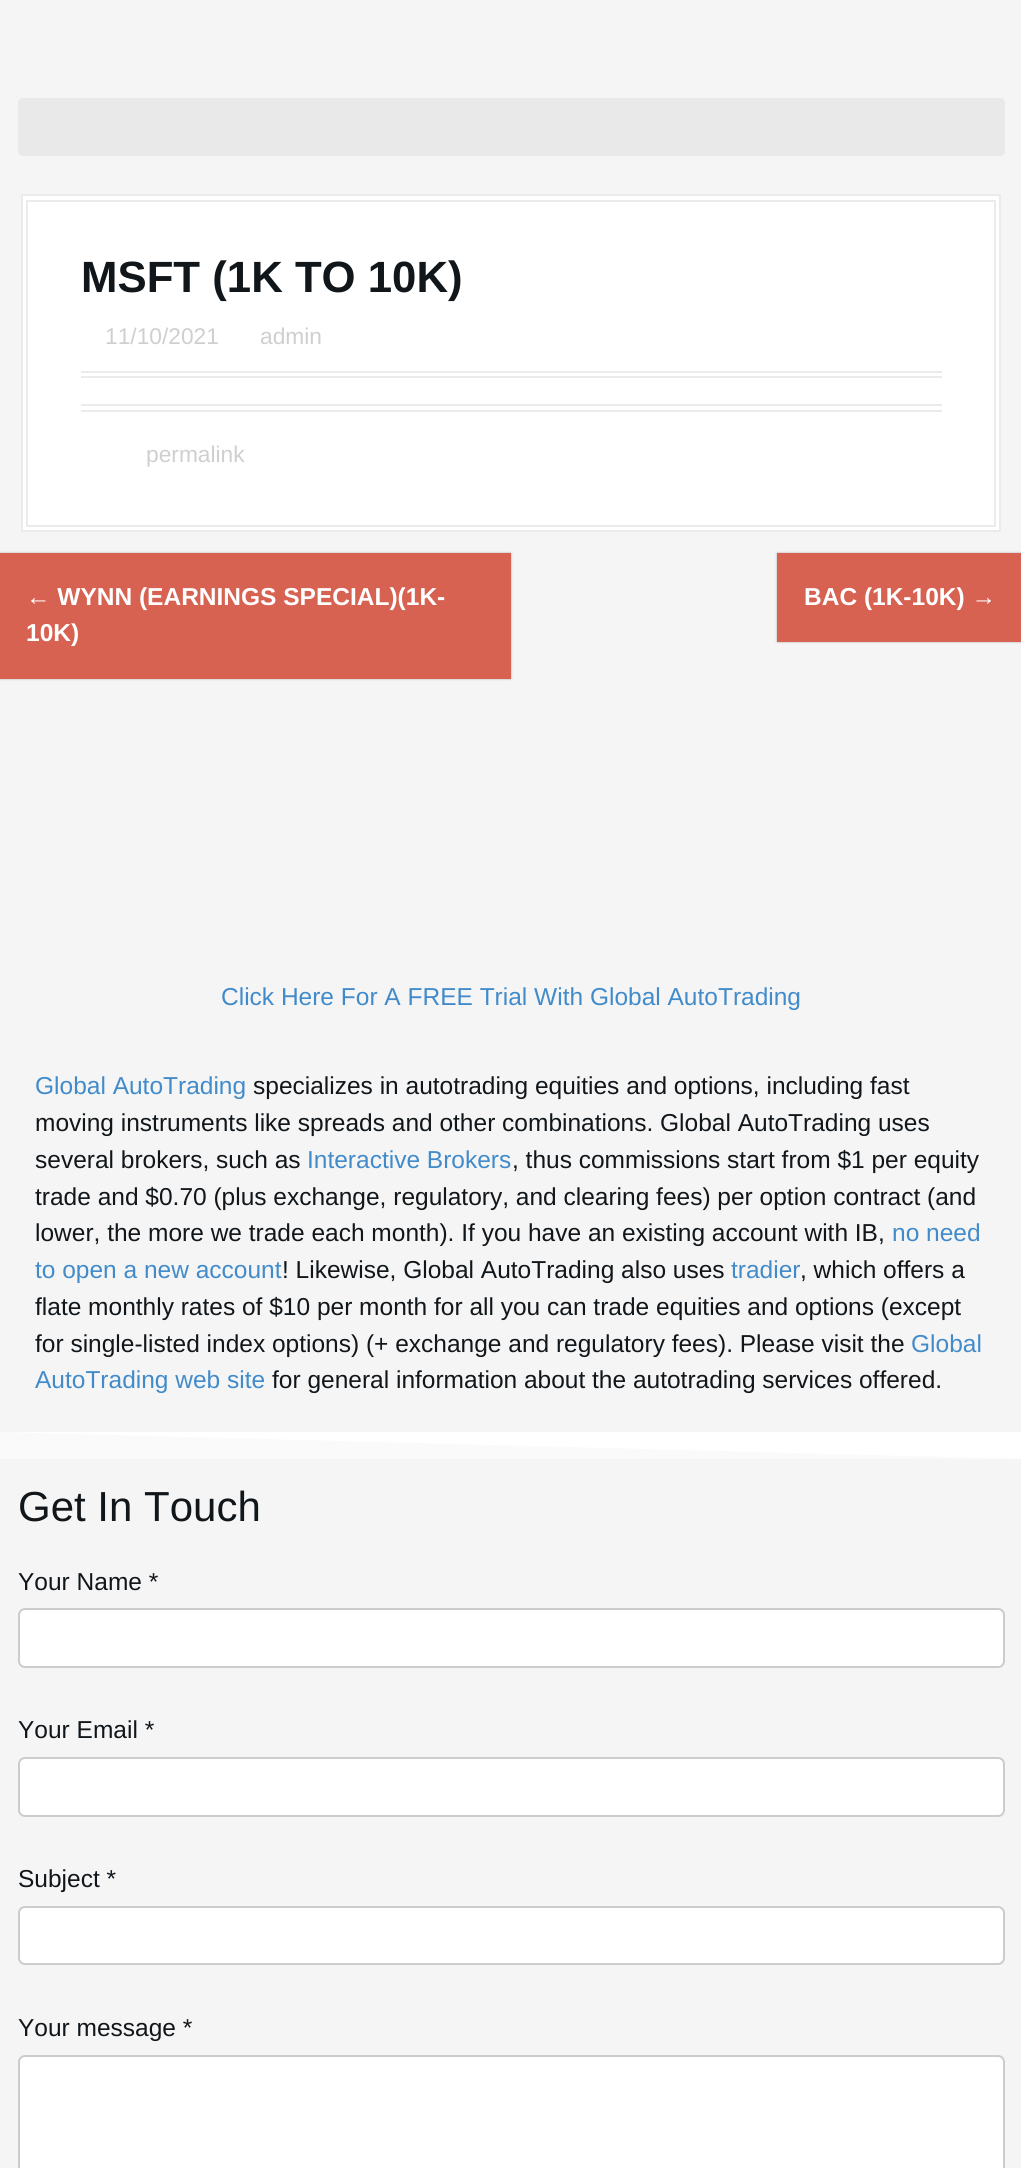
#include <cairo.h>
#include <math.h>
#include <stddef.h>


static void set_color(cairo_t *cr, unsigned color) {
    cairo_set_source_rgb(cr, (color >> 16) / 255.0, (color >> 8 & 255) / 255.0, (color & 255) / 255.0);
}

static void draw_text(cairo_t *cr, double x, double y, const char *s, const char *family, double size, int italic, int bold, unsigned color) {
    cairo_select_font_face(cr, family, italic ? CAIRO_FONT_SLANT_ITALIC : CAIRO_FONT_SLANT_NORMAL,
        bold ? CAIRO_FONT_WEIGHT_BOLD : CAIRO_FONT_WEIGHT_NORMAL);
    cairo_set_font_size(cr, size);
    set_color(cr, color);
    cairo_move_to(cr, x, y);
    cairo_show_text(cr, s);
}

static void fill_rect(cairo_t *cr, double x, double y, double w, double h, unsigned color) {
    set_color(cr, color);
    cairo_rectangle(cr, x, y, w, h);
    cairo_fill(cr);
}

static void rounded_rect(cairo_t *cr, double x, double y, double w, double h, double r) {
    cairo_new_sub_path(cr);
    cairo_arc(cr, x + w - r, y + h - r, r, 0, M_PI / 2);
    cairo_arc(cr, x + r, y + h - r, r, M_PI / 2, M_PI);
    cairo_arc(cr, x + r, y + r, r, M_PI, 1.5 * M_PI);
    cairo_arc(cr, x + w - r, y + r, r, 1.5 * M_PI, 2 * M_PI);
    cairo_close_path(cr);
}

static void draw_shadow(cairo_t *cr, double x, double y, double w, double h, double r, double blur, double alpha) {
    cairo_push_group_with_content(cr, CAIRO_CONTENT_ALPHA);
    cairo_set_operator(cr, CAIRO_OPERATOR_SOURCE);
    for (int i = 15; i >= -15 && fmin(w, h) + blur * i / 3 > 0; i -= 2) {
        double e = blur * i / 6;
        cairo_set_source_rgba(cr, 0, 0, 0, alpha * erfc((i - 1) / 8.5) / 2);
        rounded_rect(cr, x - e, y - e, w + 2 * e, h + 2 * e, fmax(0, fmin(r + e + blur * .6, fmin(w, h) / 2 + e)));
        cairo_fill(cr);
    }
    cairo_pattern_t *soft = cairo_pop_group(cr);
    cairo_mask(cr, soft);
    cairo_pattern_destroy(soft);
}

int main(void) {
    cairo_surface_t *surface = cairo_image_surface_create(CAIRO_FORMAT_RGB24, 1021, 2168);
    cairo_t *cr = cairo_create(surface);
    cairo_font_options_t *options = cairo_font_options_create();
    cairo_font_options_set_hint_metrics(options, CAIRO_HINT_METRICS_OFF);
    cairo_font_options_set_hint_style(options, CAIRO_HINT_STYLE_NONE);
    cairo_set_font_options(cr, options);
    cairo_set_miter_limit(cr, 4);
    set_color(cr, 0xF5F5F5);
    cairo_paint(cr);
    fill_rect(cr, 0, 1432, 1021, 27, 0xFAFAFA);
    set_color(cr, 0xE9E9E9);
    rounded_rect(cr, 18, 98, 987, 58, 5);
    cairo_fill(cr);
    set_color(cr, 0xFFFFFF);
    cairo_rectangle(cr, 22, 195, 978, 336);
    cairo_fill_preserve(cr);
    set_color(cr, 0xEBEBEB);
    cairo_stroke(cr);
    cairo_rectangle(cr, 27, 201, 968, 325);
    cairo_stroke(cr);
    fill_rect(cr, 81, 371, 861, 2, 0xEBEBEB);
    fill_rect(cr, 81, 376, 861, 2, 0xEBEBEB);
    draw_text(cr, 81, 292, "MSFT (1K TO 10K)", "Liberation Sans", 43.75, 0, 1, 0x11161A);
    draw_text(cr, 105, 344, "11/10/2021", "Liberation Sans", 22.75, 0, 0, 0xCFCFCF);
    draw_text(cr, 260, 344, "admin", "Liberation Sans", 22.75, 0, 0, 0xCFCFCF);
    fill_rect(cr, 81, 404, 861, 2, 0xEBEBEB);
    fill_rect(cr, 81, 410, 861, 2, 0xEBEBEB);
    draw_text(cr, 146, 462, "permalink", "Liberation Sans", 22.75, 0, 0, 0xCFCFCF);
    set_color(cr, 0xADADAD);
    draw_shadow(cr, 0, 553, 511, 126, 0, 1, 1);
    fill_rect(cr, 0, 553, 511, 126, 0xD76251);
    draw_text(cr, 26, 605, "← WYNN (EARNINGS SPECIAL)(1K-", "Liberation Sans", 24.5, 0, 1, 0xFFFFFF);
    draw_text(cr, 26, 641, "10K)", "Liberation Sans", 24.5, 0, 1, 0xFFFFFF);
    set_color(cr, 0xADADAD);
    draw_shadow(cr, 777, 553, 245, 89, 0, 1, 1);
    fill_rect(cr, 777, 553, 244, 89, 0xD76251);
    draw_text(cr, 804, 605, "BAC (1K-10K) →", "Liberation Sans", 24.5, 0, 1, 0xFFFFFF);
    draw_text(cr, 221, 1005, "Click Here For A FREE Trial With Global AutoTrading", "Liberation Sans", 24.5, 0, 0, 0x428BCA);
    draw_text(cr, 35, 1094, "Global AutoTrading", "Liberation Sans", 24.5, 0, 0, 0x428BCA);
    draw_text(cr, 253, 1094, "specializes in autotrading equities and options, including fast", "Liberation Sans", 24.5, 0, 0, 0x11161A);
    draw_text(cr, 35, 1131, "moving instruments like spreads and other combinations. Global AutoTrading uses", "Liberation Sans", 24.5, 0, 0, 0x11161A);
    draw_text(cr, 35, 1168, "several brokers, such as", "Liberation Sans", 24.5, 0, 0, 0x11161A);
    draw_text(cr, 307, 1168, "Interactive Brokers", "Liberation Sans", 24.5, 0, 0, 0x428BCA);
    draw_text(cr, 512, 1168, ", thus commissions start from $1 per equity", "Liberation Sans", 24.5, 0, 0, 0x11161A);
    draw_text(cr, 35, 1205, "trade and $0.70 (plus exchange, regulatory, and clearing fees) per option contract (and", "Liberation Sans", 24.5, 0, 0, 0x11161A);
    draw_text(cr, 35, 1241, "lower, the more we trade each month). If you have an existing account with IB,", "Liberation Sans", 24.5, 0, 0, 0x11161A);
    draw_text(cr, 892, 1241, "no need", "Liberation Sans", 24.5, 0, 0, 0x428BCA);
    draw_text(cr, 35, 1278, "to open a new account", "Liberation Sans", 24.5, 0, 0, 0x428BCA);
    draw_text(cr, 282, 1278, "! Likewise, Global AutoTrading also uses", "Liberation Sans", 24.5, 0, 0, 0x11161A);
    draw_text(cr, 731, 1278, "tradier", "Liberation Sans", 24.5, 0, 0, 0x428BCA);
    draw_text(cr, 800, 1278, ", which offers a", "Liberation Sans", 24.5, 0, 0, 0x11161A);
    draw_text(cr, 35, 1315, "flate monthly rates of $10 per month for all you can trade equities and options (except", "Liberation Sans", 24.5, 0, 0, 0x11161A);
    draw_text(cr, 35, 1352, "for single-listed index options) (+ exchange and regulatory fees). Please visit the", "Liberation Sans", 24.5, 0, 0, 0x11161A);
    draw_text(cr, 911, 1352, "Global", "Liberation Sans", 24.5, 0, 0, 0x428BCA);
    draw_text(cr, 35, 1388, "AutoTrading web site", "Liberation Sans", 24.5, 0, 0, 0x428BCA);
    draw_text(cr, 272, 1388, "for general information about the autotrading services offered.", "Liberation Sans", 24.5, 0, 0, 0x11161A);
    set_color(cr, 0xFFFFFF);
    cairo_new_path(cr);
    cairo_move_to(cr, -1, 1432);
    cairo_line_to(cr, 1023, 1432);
    cairo_line_to(cr, 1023, 1459);
    cairo_close_path(cr);
    cairo_fill(cr);
    draw_text(cr, 18, 1521, "Get In Touch", "Liberation Sans", 42, 0, 0, 0x11161A);
    draw_text(cr, 18, 1590, "Your Name *", "Liberation Sans", 24.5, 0, 0, 0x11161A);
    set_color(cr, 0xFFFFFF);
    rounded_rect(cr, 19, 1609, 985, 58, 6);
    cairo_fill_preserve(cr);
    set_color(cr, 0xCCCCCC);
    cairo_stroke(cr);
    draw_text(cr, 18, 1738, "Your Email *", "Liberation Sans", 24.5, 0, 0, 0x11161A);
    set_color(cr, 0xFFFFFF);
    rounded_rect(cr, 19, 1758, 985, 58, 6);
    cairo_fill_preserve(cr);
    set_color(cr, 0xCCCCCC);
    cairo_stroke(cr);
    draw_text(cr, 18, 1887, "Subject *", "Liberation Sans", 24.5, 0, 0, 0x11161A);
    set_color(cr, 0xFFFFFF);
    rounded_rect(cr, 19, 1907, 985, 57, 6);
    cairo_fill_preserve(cr);
    set_color(cr, 0xCCCCCC);
    cairo_stroke(cr);
    draw_text(cr, 18, 2036, "Your message *", "Liberation Sans", 24.5, 0, 0, 0x11161A);
    set_color(cr, 0xFFFFFF);
    rounded_rect(cr, 19, 2056, 985, 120, 6);
    cairo_fill_preserve(cr);
    set_color(cr, 0xCCCCCC);
    cairo_stroke(cr);
    cairo_surface_write_to_png(surface, "output.png");
    cairo_font_options_destroy(options);
    cairo_destroy(cr);
    cairo_surface_destroy(surface);
    return 0;
}
